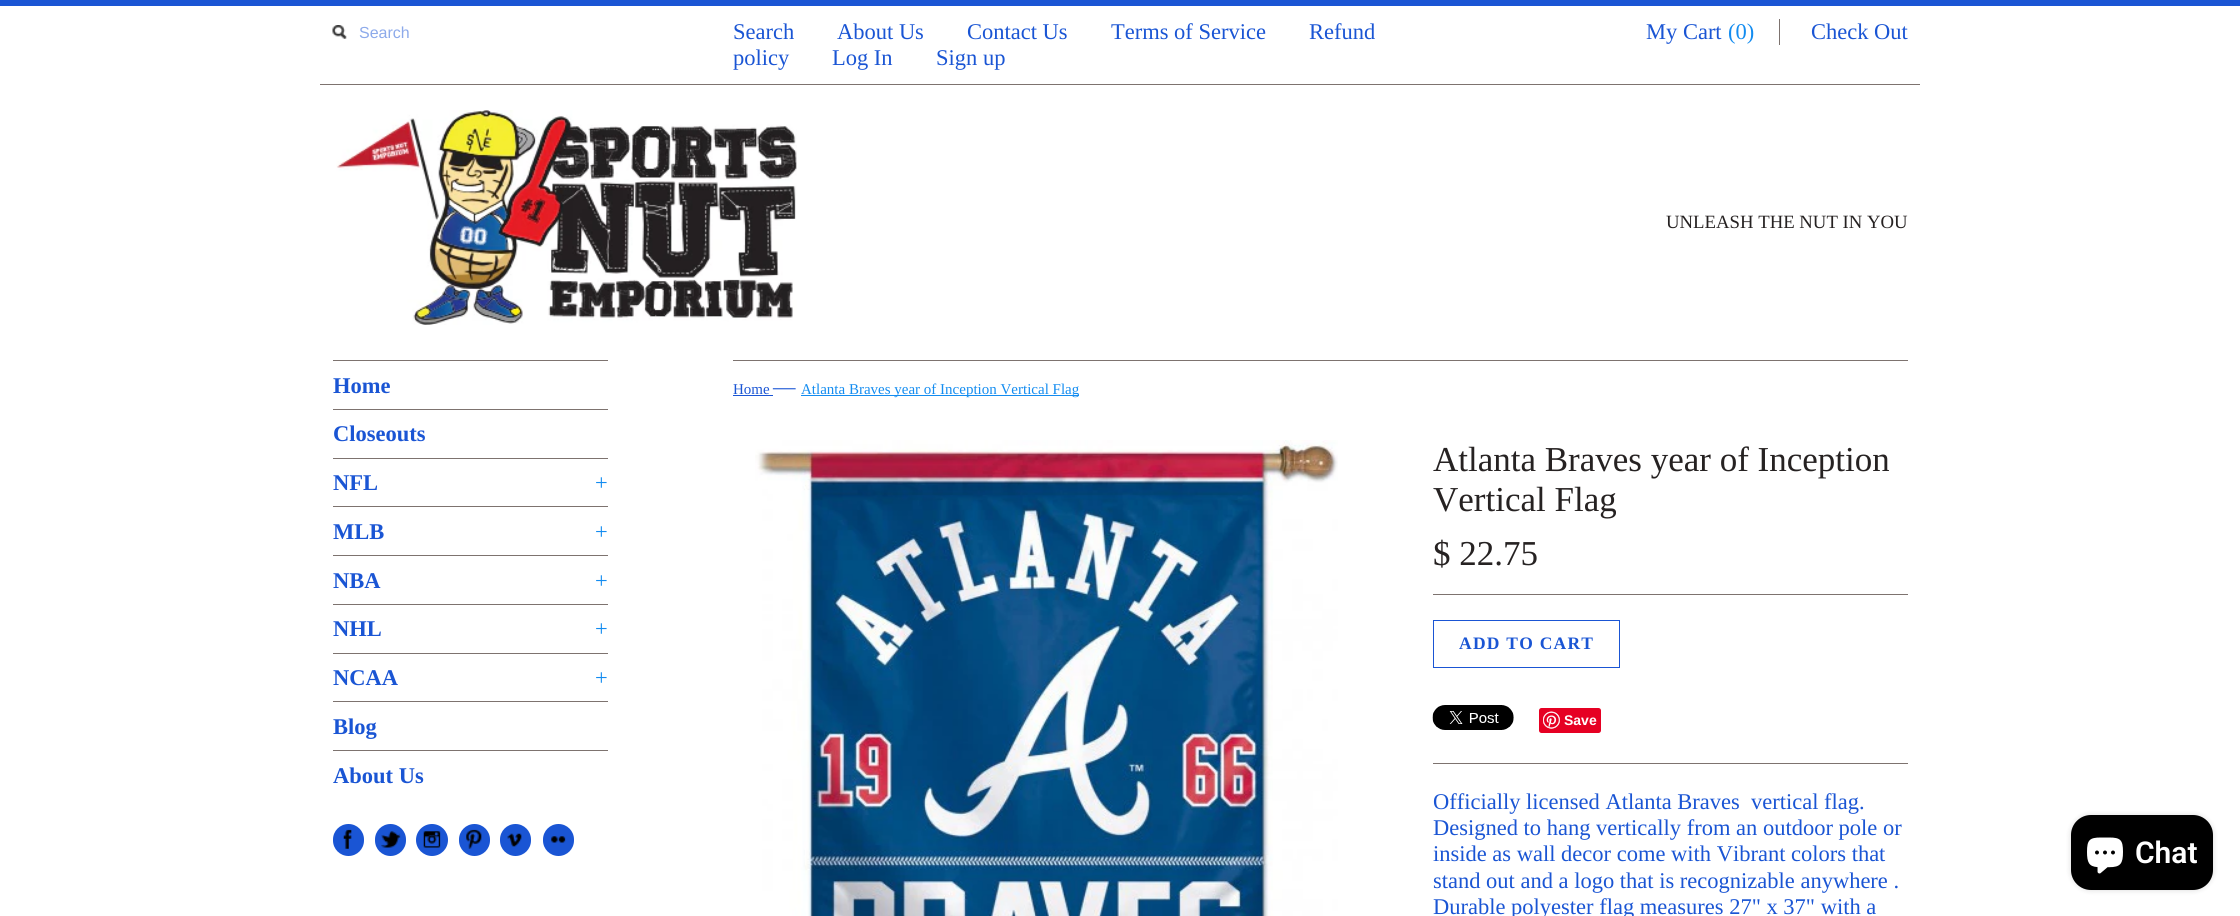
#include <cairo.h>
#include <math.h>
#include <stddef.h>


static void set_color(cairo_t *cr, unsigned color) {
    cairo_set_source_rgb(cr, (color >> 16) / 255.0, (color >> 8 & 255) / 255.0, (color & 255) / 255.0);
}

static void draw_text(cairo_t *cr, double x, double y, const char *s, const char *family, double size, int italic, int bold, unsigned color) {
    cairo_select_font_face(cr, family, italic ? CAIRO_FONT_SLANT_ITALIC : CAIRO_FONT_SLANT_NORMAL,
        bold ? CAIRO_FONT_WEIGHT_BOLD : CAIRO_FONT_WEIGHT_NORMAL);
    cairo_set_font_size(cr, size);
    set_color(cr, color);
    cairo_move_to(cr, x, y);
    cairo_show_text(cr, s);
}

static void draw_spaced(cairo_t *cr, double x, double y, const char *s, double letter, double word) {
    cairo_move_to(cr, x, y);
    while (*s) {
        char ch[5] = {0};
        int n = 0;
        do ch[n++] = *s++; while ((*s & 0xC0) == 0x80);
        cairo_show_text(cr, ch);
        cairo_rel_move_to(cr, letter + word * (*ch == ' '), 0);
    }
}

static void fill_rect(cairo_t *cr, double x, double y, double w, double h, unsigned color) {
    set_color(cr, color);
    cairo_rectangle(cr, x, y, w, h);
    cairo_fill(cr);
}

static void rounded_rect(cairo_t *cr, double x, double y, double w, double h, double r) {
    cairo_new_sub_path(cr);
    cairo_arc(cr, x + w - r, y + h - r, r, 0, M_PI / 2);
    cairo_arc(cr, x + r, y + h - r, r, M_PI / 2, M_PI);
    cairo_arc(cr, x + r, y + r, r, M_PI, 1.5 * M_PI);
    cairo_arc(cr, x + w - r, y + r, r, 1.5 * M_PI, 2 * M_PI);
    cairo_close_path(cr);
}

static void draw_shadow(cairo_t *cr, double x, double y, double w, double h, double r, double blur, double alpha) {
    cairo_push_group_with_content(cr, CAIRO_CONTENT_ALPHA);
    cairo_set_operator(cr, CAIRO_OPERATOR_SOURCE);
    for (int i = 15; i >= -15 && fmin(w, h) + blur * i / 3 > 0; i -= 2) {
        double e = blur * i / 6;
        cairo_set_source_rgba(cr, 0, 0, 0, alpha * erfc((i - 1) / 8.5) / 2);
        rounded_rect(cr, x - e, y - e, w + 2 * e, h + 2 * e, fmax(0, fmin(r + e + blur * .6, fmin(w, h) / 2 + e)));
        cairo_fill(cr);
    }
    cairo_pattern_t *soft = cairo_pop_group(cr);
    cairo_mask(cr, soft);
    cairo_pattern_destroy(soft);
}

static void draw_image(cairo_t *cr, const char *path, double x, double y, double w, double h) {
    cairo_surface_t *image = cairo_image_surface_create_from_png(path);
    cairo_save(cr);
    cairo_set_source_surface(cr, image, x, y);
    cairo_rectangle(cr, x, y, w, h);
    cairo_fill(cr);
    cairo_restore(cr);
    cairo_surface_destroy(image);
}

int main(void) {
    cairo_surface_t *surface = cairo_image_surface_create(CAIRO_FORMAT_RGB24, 2240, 916);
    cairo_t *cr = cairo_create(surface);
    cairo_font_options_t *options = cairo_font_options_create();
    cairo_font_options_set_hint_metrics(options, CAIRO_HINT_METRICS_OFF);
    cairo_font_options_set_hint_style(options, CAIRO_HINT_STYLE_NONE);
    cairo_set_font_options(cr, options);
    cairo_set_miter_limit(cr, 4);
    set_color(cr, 0xFFFFFF);
    cairo_paint(cr);
    fill_rect(cr, 0, 0, 2240, 6, 0x1A55D4);
    fill_rect(cr, 320, 84, 1600, 1, 0x7D736F);
    draw_image(cr, "assets/img1.png", 332, 25, 15, 14);
    draw_text(cr, 359, 38, "Search", "Liberation Sans", 16, 0, 0, 0x8DAAEA);
    draw_text(cr, 733, 39, "Search", "Liberation Serif", 22.5, 0, 0, 0x1A55D4);
    draw_text(cr, 837, 39, "About Us", "Liberation Serif", 22.5, 0, 0, 0x1A55D4);
    draw_text(cr, 967, 39, "Contact Us", "Liberation Serif", 22.5, 0, 0, 0x1A55D4);
    draw_text(cr, 1111, 39, "Terms of Service", "Liberation Serif", 22.5, 0, 0, 0x1A55D4);
    draw_text(cr, 1309, 39, "Refund", "Liberation Serif", 22.5, 0, 0, 0x1A55D4);
    draw_text(cr, 733, 65, "policy", "Liberation Serif", 22.5, 0, 0, 0x1A55D4);
    draw_text(cr, 832, 65, "Log In", "Liberation Serif", 22.5, 0, 0, 0x1A55D4);
    draw_text(cr, 936, 65, "Sign up", "Liberation Serif", 22.5, 0, 0, 0x1A55D4);
    draw_text(cr, 1646, 39, "My Cart", "Liberation Serif", 22.5, 0, 0, 0x1A55D4);
    draw_text(cr, 1728, 39, "(0)", "Liberation Serif", 22.5, 0, 0, 0x138CF0);
    fill_rect(cr, 1779, 19, 1, 26, 0x7D736F);
    draw_text(cr, 1811, 39, "Check Out", "Liberation Serif", 22.5, 0, 0, 0x1A55D4);
    draw_image(cr, "assets/img2.png", 336, 110, 461, 215);
    draw_text(cr, 1666, 228, "UNLEASH THE NUT IN YOU", "Liberation Serif", 18.75, 0, 0, 0x262222);
    fill_rect(cr, 333, 360, 275, 1, 0x7D736F);
    draw_text(cr, 333, 393, "Home", "Liberation Serif", 22.5, 0, 1, 0x1A55D4);
    fill_rect(cr, 333, 409, 275, 1, 0x7D736F);
    draw_text(cr, 333, 441, "Closeouts", "Liberation Serif", 22.5, 0, 1, 0x1A55D4);
    fill_rect(cr, 333, 458, 275, 1, 0x7D736F);
    draw_text(cr, 333, 490, "NFL", "Liberation Serif", 22.5, 0, 1, 0x1A55D4);
    draw_text(cr, 595, 490, "+", "Liberation Serif", 22.5, 0, 0, 0x138CF0);
    fill_rect(cr, 333, 506, 275, 1, 0x7D736F);
    draw_text(cr, 333, 539, "MLB", "Liberation Serif", 22.5, 0, 1, 0x1A55D4);
    draw_text(cr, 595, 539, "+", "Liberation Serif", 22.5, 0, 0, 0x138CF0);
    fill_rect(cr, 333, 555, 275, 1, 0x7D736F);
    draw_text(cr, 333, 588, "NBA", "Liberation Serif", 22.5, 0, 1, 0x1A55D4);
    draw_text(cr, 595, 588, "+", "Liberation Serif", 22.5, 0, 0, 0x138CF0);
    fill_rect(cr, 333, 604, 275, 1, 0x7D736F);
    draw_text(cr, 333, 636, "NHL", "Liberation Serif", 22.5, 0, 1, 0x1A55D4);
    draw_text(cr, 595, 636, "+", "Liberation Serif", 22.5, 0, 0, 0x138CF0);
    fill_rect(cr, 333, 653, 275, 1, 0x7D736F);
    draw_text(cr, 333, 685, "NCAA", "Liberation Serif", 22.5, 0, 1, 0x1A55D4);
    draw_text(cr, 595, 685, "+", "Liberation Serif", 22.5, 0, 0, 0x138CF0);
    fill_rect(cr, 333, 701, 275, 1, 0x7D736F);
    draw_text(cr, 333, 734, "Blog", "Liberation Serif", 22.5, 0, 1, 0x1A55D4);
    fill_rect(cr, 333, 750, 275, 1, 0x7D736F);
    draw_text(cr, 333, 783, "About Us", "Liberation Serif", 22.5, 0, 1, 0x1A55D4);
    rounded_rect(cr, 333, 824, 31, 32, 15.5);
    cairo_fill(cr);
    draw_image(cr, "assets/img3.png", 343, 829, 9, 20);
    rounded_rect(cr, 375, 824, 31, 32, 15.5);
    cairo_fill(cr);
    draw_image(cr, "assets/img4.png", 381, 831, 20, 17);
    cairo_arc(cr, 432, 840, 16, 0, 2 * M_PI);
    cairo_fill(cr);
    draw_image(cr, "assets/img5.png", 423, 831, 18, 17);
    rounded_rect(cr, 459, 824, 31, 32, 15.5);
    cairo_fill(cr);
    draw_image(cr, "assets/img6.png", 466, 829, 16, 20);
    rounded_rect(cr, 500, 824, 31, 32, 15.5);
    cairo_fill(cr);
    draw_image(cr, "assets/img7.png", 507, 833, 15, 14);
    rounded_rect(cr, 543, 824, 31, 32, 15.5);
    cairo_fill(cr);
    draw_image(cr, "assets/img8.png", 551, 836, 15, 7);
    fill_rect(cr, 733, 360, 1175, 1, 0x7D736F);
    draw_text(cr, 733, 394, "Home", "Liberation Serif", 15, 0, 0, 0x1A55D4);
    fill_rect(cr, 733, 395, 40, 1, 0x1A55D4);
    draw_text(cr, 773, 394, "—", "Liberation Serif", 22.5, 0, 0, 0x1A55D4);
    fill_rect(cr, 801, 395, 278, 1, 0x138CF0);
    draw_text(cr, 801, 394, "Atlanta Braves year of Inception Vertical Flag", "Liberation Serif", 15, 0, 0, 0x138CF0);
    draw_image(cr, "assets/img9.png", 755, 440, 583, 476);
    draw_text(cr, 1433, 471, "Atlanta Braves year of Inception", "Liberation Serif", 35, 0, 0, 0x262222);
    draw_text(cr, 1433, 511, "Vertical Flag", "Liberation Serif", 35, 0, 0, 0x262222);
    draw_text(cr, 1433, 565, "$ 22.75", "Liberation Serif", 35, 0, 0, 0x262222);
    fill_rect(cr, 1433, 594, 475, 1, 0x7D736F);
    cairo_rectangle(cr, 1433.5, 620.5, 186, 47);
    set_color(cr, 0x1A55D4);
    cairo_set_line_width(cr, 1);
    cairo_stroke(cr);
    cairo_select_font_face(cr, "Liberation Serif", CAIRO_FONT_SLANT_NORMAL, CAIRO_FONT_WEIGHT_BOLD);
    cairo_set_font_size(cr, 17.5);
    draw_spaced(cr, 1459, 649, "ADD TO CART", 1.25, 0);
    draw_image(cr, "assets/img10.png", 1432, 705, 82, 25);
    set_color(cr, 0xE60023);
    rounded_rect(cr, 1539, 708, 62, 25, 2.5);
    cairo_fill(cr);
    draw_image(cr, "assets/img11.png", 1543, 711, 17, 18);
    draw_text(cr, 1564, 725, "Save", "Liberation Sans", 14, 0, 1, 0xFFFFFF);
    fill_rect(cr, 1433, 763, 475, 1, 0x7D736F);
    draw_text(cr, 1433, 809, "Officially licensed Atlanta Braves  vertical flag.", "Liberation Serif", 22.5, 0, 0, 0x1A55D4);
    draw_text(cr, 1433, 835, "Designed to hang vertically from an outdoor pole or", "Liberation Serif", 22.5, 0, 0, 0x1A55D4);
    draw_text(cr, 1433, 861, "inside as wall decor come with Vibrant colors that", "Liberation Serif", 22.5, 0, 0, 0x1A55D4);
    draw_text(cr, 1433, 888, "stand out and a logo that is recognizable anywhere .", "Liberation Serif", 22.5, 0, 0, 0x1A55D4);
    draw_text(cr, 1433, 914, "Durable polyester flag measures 27\" x 37\" with a", "Liberation Serif", 22.5, 0, 0, 0x1A55D4);
    set_color(cr, 0x000000);
    draw_shadow(cr, 2071, 815, 142, 75, 20, 3, 0.15);
    set_color(cr, 0x000000);
    rounded_rect(cr, 2071, 815, 142, 75, 20);
    cairo_fill(cr);
    draw_image(cr, "assets/img12.png", 2087, 837, 36, 37);
    draw_text(cr, 2135, 863, "Chat", "Roboto SemiBold", 30, 0, 0, 0xFFFFFF);
    cairo_surface_write_to_png(surface, "output.png");
    cairo_font_options_destroy(options);
    cairo_destroy(cr);
    cairo_surface_destroy(surface);
    return 0;
}
